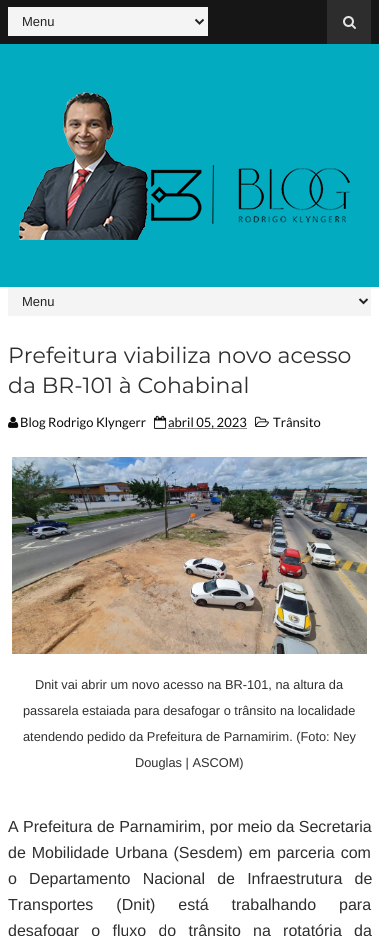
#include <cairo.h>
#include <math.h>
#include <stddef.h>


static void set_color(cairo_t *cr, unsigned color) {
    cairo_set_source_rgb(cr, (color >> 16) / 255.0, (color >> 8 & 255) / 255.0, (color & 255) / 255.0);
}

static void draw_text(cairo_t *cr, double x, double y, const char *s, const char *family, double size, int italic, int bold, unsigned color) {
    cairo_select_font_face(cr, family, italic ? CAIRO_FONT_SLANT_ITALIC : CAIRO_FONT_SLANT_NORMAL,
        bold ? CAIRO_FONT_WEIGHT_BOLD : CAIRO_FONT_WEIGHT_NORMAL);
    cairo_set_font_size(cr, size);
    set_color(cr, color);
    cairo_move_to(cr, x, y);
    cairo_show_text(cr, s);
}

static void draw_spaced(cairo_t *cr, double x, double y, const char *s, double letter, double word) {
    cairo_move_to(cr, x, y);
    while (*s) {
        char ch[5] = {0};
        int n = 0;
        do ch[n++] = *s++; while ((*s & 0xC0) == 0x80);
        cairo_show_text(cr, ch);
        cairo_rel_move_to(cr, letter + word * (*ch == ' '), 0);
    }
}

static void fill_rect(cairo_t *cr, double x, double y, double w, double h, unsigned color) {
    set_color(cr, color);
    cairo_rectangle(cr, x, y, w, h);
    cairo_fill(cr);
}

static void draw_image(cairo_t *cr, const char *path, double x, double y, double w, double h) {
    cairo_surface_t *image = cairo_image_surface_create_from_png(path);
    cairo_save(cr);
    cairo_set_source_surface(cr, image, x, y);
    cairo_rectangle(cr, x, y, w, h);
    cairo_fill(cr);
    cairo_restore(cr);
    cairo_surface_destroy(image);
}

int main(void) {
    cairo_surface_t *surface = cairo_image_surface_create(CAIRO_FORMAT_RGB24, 379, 936);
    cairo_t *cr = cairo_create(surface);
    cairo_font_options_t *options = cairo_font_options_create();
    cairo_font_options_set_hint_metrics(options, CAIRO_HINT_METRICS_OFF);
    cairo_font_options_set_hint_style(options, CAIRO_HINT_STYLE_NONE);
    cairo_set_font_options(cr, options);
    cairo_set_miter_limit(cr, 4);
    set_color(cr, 0xFFFFFF);
    cairo_paint(cr);
    fill_rect(cr, 0, 0, 379, 44, 0x161616);
    fill_rect(cr, 0, 44, 379, 243, 0x02ABC0);
    fill_rect(cr, 8, 7, 200, 29, 0xF4F4F4);
    cairo_new_path(cr);
    cairo_move_to(cr, 195.5, 19.5);
    cairo_line_to(cr, 199.5, 23.5);
    cairo_line_to(cr, 203.5, 19.5);
    set_color(cr, 0x222222);
    cairo_stroke(cr);
    draw_text(cr, 22, 26, "Menu", "Liberation Sans", 13, 0, 0, 0x222222);
    fill_rect(cr, 327, 0, 44, 44, 0x2D2D2D);
    draw_image(cr, "assets/img1.png", 343, 16, 13, 13);
    draw_image(cr, "assets/img2.png", 19, 92, 331, 148);
    fill_rect(cr, 8, 287, 363, 29, 0xF4F4F4);
    cairo_new_path(cr);
    cairo_move_to(cr, 359.5, 299);
    cairo_line_to(cr, 363.5, 303);
    cairo_line_to(cr, 367.5, 299);
    set_color(cr, 0x222222);
    cairo_stroke(cr);
    draw_text(cr, 22, 306, "Menu", "Liberation Sans", 13, 0, 0, 0x222222);
    draw_text(cr, 8, 363, "Prefeitura viabiliza novo acesso", "Montserrat Thin", 22, 0, 0, 0x2E2E2E);
    draw_text(cr, 8, 393, "da BR-101 à Cohabinal", "Montserrat Thin", 22, 0, 0, 0x2E2E2E);
    draw_image(cr, "assets/img3.png", 8, 416, 11, 12);
    draw_text(cr, 20, 427, "Blog Rodrigo Klyngerr", "Lato", 13, 0, 0, 0x0C0C0C);
    draw_image(cr, "assets/img4.png", 154, 415, 13, 14);
    cairo_new_path(cr);
    cairo_move_to(cr, 168.5, 428.5);
    cairo_line_to(cr, 247, 428.5);
    cairo_set_line_width(cr, 1);
    cairo_set_dash(cr, (double[]){1, 1}, 2, 0);
    cairo_stroke(cr);
    draw_text(cr, 168, 427, "abril 05, 2023", "Lato", 13, 0, 0, 0x0C0C0C);
    draw_image(cr, "assets/img5.png", 255, 416, 14, 11);
    draw_text(cr, 273, 427, "Trânsito", "Lato", 13, 0, 0, 0x0C0C0C);
    draw_image(cr, "assets/img6.png", 12, 457, 355, 197);
    draw_text(cr, 35, 689, "Dnit vai abrir um novo acesso na BR-101, na altura da", "Liberation Sans", 12.8, 0, 0, 0x2E2E2E);
    draw_text(cr, 23, 715, "passarela estaiada para desafogar o trânsito na localidade", "Liberation Sans", 12.8, 0, 0, 0x2E2E2E);
    draw_text(cr, 23, 741, "atendendo pedido da Prefeitura de Parnamirim. (Foto: Ney", "Liberation Sans", 12.8, 0, 0, 0x2E2E2E);
    draw_text(cr, 135, 767, "Douglas | ASCOM)", "Liberation Sans", 12.8, 0, 0, 0x2E2E2E);
    draw_text(cr, 8, 832, "A Prefeitura de Parnamirim, por meio da Secretaria", "Liberation Sans", 16, 0, 0, 0x2E2E2E);
    draw_spaced(cr, 8, 858, "de Mobilidade Urbana (Sesdem) em parceria com", 0, 1.5);
    draw_spaced(cr, 8, 884, "o Departamento Nacional de Infraestrutura de", 0, 7.75);
    draw_spaced(cr, 8, 910, "Transportes (Dnit) está trabalhando para", 0, 18.5);
    draw_spaced(cr, 8, 936, "desafogar o fluxo do trânsito na rotatória da", 0, 7.75);
    cairo_surface_write_to_png(surface, "output.png");
    cairo_font_options_destroy(options);
    cairo_destroy(cr);
    cairo_surface_destroy(surface);
    return 0;
}
